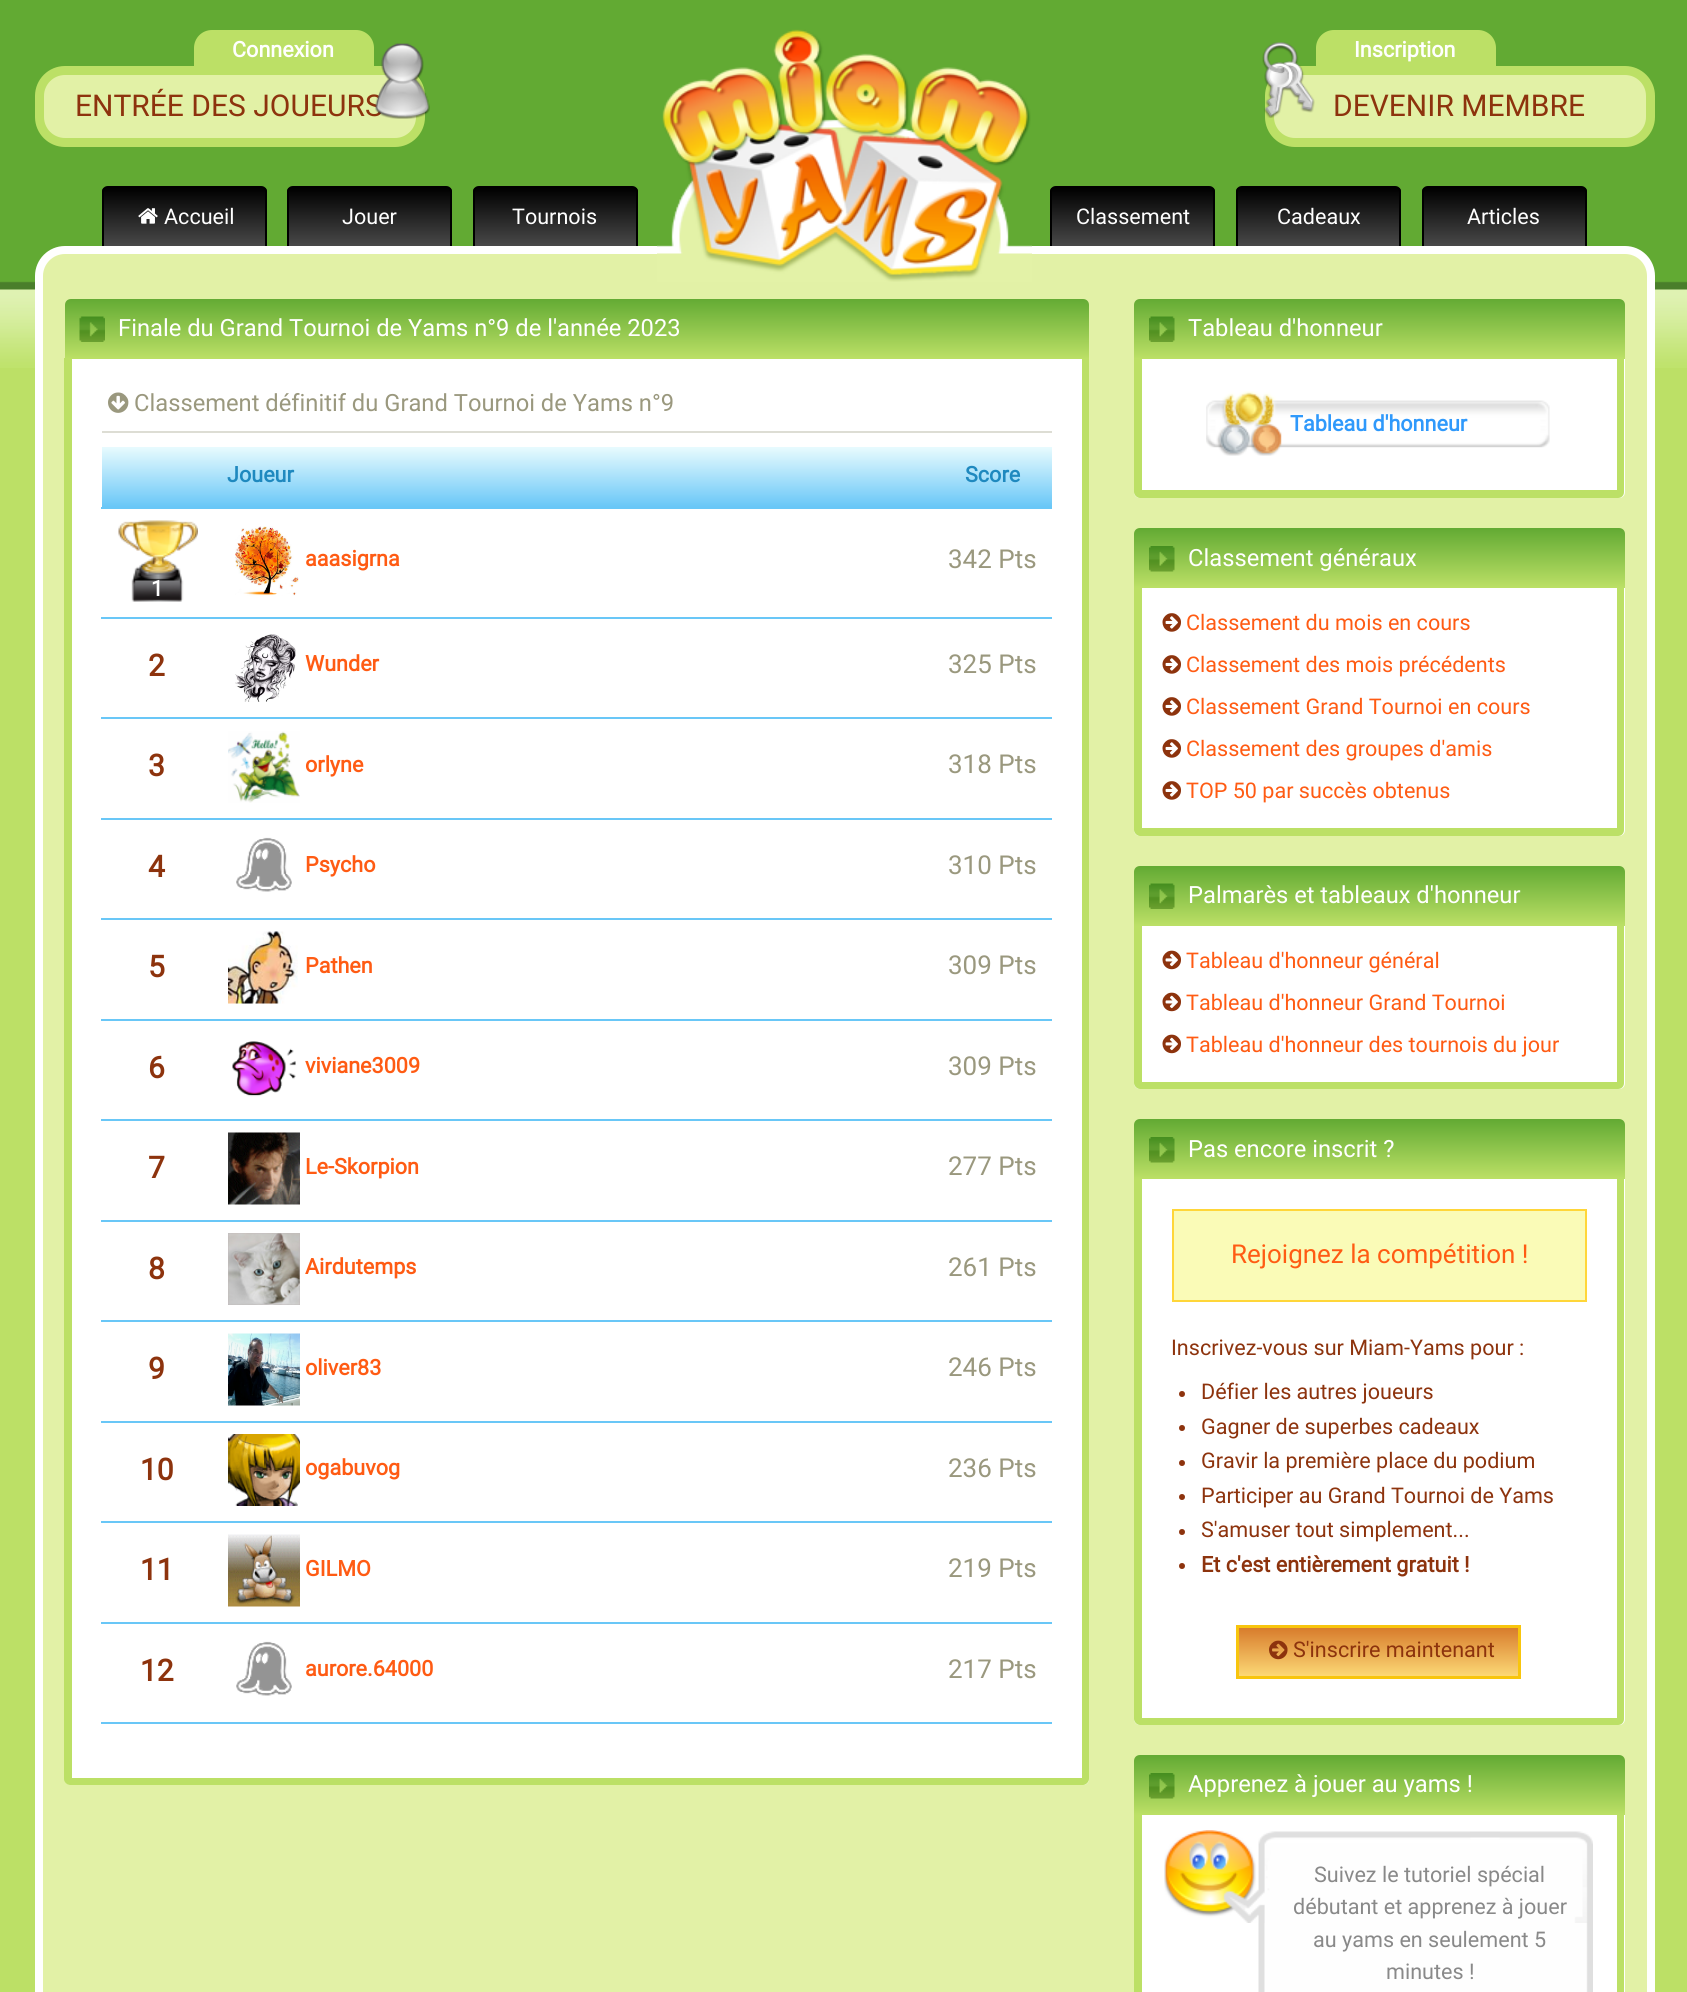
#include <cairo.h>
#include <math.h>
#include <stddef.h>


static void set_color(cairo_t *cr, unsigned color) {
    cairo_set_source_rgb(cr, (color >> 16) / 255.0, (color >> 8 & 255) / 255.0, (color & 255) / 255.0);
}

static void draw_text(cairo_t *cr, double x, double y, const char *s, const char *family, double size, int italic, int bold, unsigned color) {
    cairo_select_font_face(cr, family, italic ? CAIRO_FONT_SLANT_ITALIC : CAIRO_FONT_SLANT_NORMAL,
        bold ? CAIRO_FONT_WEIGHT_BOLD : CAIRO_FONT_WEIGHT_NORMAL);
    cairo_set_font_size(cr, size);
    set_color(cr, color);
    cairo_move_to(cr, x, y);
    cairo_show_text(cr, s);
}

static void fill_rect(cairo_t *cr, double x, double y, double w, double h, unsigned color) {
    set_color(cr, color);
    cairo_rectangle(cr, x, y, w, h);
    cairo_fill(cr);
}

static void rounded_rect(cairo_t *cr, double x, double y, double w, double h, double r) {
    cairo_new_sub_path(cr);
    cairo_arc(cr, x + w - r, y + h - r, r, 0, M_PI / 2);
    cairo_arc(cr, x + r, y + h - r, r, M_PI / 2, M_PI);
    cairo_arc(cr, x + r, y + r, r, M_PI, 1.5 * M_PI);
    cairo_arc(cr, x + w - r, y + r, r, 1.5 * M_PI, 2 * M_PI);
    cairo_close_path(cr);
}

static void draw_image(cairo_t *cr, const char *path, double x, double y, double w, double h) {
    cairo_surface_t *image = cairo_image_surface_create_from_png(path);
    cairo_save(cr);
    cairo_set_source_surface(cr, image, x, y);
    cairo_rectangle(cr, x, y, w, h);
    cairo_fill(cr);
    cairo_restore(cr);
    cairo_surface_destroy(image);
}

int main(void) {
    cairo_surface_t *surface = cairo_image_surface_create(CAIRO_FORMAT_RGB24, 1687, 1992);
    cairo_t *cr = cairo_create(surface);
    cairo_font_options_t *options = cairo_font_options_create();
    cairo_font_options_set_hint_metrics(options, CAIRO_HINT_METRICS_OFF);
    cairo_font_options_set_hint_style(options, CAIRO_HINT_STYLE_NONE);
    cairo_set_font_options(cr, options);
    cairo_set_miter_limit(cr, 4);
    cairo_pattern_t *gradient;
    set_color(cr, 0xBCE066);
    cairo_paint(cr);
    draw_image(cr, "assets/img1.png", 0, 0, 1687, 368);
    cairo_save(cr);
    cairo_new_path(cr);
    cairo_move_to(cr, 108, 186);
    cairo_line_to(cr, 261, 186);
    cairo_curve_to(cr, 264.5, 186, 267, 188.5, 267, 192);
    cairo_line_to(cr, 267, 291);
    cairo_line_to(cr, 102, 291);
    cairo_line_to(cr, 102, 192);
    cairo_curve_to(cr, 102, 188.5, 104.5, 186, 108, 186);
    cairo_close_path(cr);
    cairo_clip(cr);
    gradient = cairo_pattern_create_linear(185, 188, 185, 290);
    cairo_pattern_add_color_stop_rgba(gradient, 0, 0, 0, 0, 1);
    cairo_pattern_add_color_stop_rgba(gradient, 1, 0.502, 0.502, 0.502, 1);
    cairo_set_source(cr, gradient);
    cairo_pattern_destroy(gradient);
    cairo_rectangle(cr, 102, 188, 165, 58);
    cairo_fill(cr);
    cairo_restore(cr);
    cairo_new_path(cr);
    cairo_move_to(cr, 108, 187);
    cairo_line_to(cr, 261, 187);
    cairo_curve_to(cr, 264, 187, 266, 189, 266, 192);
    cairo_line_to(cr, 266, 290);
    cairo_line_to(cr, 103, 290);
    cairo_line_to(cr, 103, 192);
    cairo_curve_to(cr, 103, 189, 105, 187, 108, 187);
    cairo_close_path(cr);
    set_color(cr, 0x000000);
    cairo_stroke(cr);
    cairo_save(cr);
    cairo_new_path(cr);
    cairo_move_to(cr, 293, 186);
    cairo_line_to(cr, 446, 186);
    cairo_curve_to(cr, 449.5, 186, 452, 188.5, 452, 192);
    cairo_line_to(cr, 452, 291);
    cairo_line_to(cr, 287, 291);
    cairo_line_to(cr, 287, 192);
    cairo_curve_to(cr, 287, 188.5, 289.5, 186, 293, 186);
    cairo_close_path(cr);
    cairo_clip(cr);
    gradient = cairo_pattern_create_linear(369, 188, 369, 290);
    cairo_pattern_add_color_stop_rgba(gradient, 0, 0, 0, 0, 1);
    cairo_pattern_add_color_stop_rgba(gradient, 1, 0.502, 0.502, 0.502, 1);
    cairo_set_source(cr, gradient);
    cairo_pattern_destroy(gradient);
    cairo_rectangle(cr, 287, 188, 165, 58);
    cairo_fill(cr);
    cairo_restore(cr);
    cairo_new_path(cr);
    cairo_move_to(cr, 293, 187);
    cairo_line_to(cr, 446, 187);
    cairo_curve_to(cr, 449, 187, 451, 189, 451, 192);
    cairo_line_to(cr, 451, 290);
    cairo_line_to(cr, 288, 290);
    cairo_line_to(cr, 288, 192);
    cairo_curve_to(cr, 288, 189, 290, 187, 293, 187);
    cairo_close_path(cr);
    cairo_stroke(cr);
    cairo_save(cr);
    cairo_new_path(cr);
    cairo_move_to(cr, 479, 186);
    cairo_line_to(cr, 632, 186);
    cairo_curve_to(cr, 635.5, 186, 638, 188.5, 638, 192);
    cairo_line_to(cr, 638, 291);
    cairo_line_to(cr, 473, 291);
    cairo_line_to(cr, 473, 192);
    cairo_curve_to(cr, 473, 188.5, 475.5, 186, 479, 186);
    cairo_close_path(cr);
    cairo_clip(cr);
    gradient = cairo_pattern_create_linear(555, 188, 555, 290);
    cairo_pattern_add_color_stop_rgba(gradient, 0, 0, 0, 0, 1);
    cairo_pattern_add_color_stop_rgba(gradient, 1, 0.502, 0.502, 0.502, 1);
    cairo_set_source(cr, gradient);
    cairo_pattern_destroy(gradient);
    cairo_rectangle(cr, 473, 188, 165, 58);
    cairo_fill(cr);
    cairo_restore(cr);
    cairo_new_path(cr);
    cairo_move_to(cr, 479, 187);
    cairo_line_to(cr, 632, 187);
    cairo_curve_to(cr, 635, 187, 637, 189, 637, 192);
    cairo_line_to(cr, 637, 290);
    cairo_line_to(cr, 474, 290);
    cairo_line_to(cr, 474, 192);
    cairo_curve_to(cr, 474, 189, 476, 187, 479, 187);
    cairo_close_path(cr);
    cairo_stroke(cr);
    cairo_save(cr);
    cairo_new_path(cr);
    cairo_move_to(cr, 1056, 186);
    cairo_line_to(cr, 1209, 186);
    cairo_curve_to(cr, 1212.5, 186, 1215, 188.5, 1215, 192);
    cairo_line_to(cr, 1215, 291);
    cairo_line_to(cr, 1050, 291);
    cairo_line_to(cr, 1050, 192);
    cairo_curve_to(cr, 1050, 188.5, 1052.5, 186, 1056, 186);
    cairo_close_path(cr);
    cairo_clip(cr);
    gradient = cairo_pattern_create_linear(1133, 188, 1133, 290);
    cairo_pattern_add_color_stop_rgba(gradient, 0, 0, 0, 0, 1);
    cairo_pattern_add_color_stop_rgba(gradient, 1, 0.502, 0.502, 0.502, 1);
    cairo_set_source(cr, gradient);
    cairo_pattern_destroy(gradient);
    cairo_rectangle(cr, 1050, 188, 165, 58);
    cairo_fill(cr);
    cairo_restore(cr);
    cairo_new_path(cr);
    cairo_move_to(cr, 1056, 187);
    cairo_line_to(cr, 1209, 187);
    cairo_curve_to(cr, 1212, 187, 1214, 189, 1214, 192);
    cairo_line_to(cr, 1214, 290);
    cairo_line_to(cr, 1051, 290);
    cairo_line_to(cr, 1051, 192);
    cairo_curve_to(cr, 1051, 189, 1053, 187, 1056, 187);
    cairo_close_path(cr);
    cairo_stroke(cr);
    cairo_save(cr);
    cairo_new_path(cr);
    cairo_move_to(cr, 1242, 186);
    cairo_line_to(cr, 1395, 186);
    cairo_curve_to(cr, 1398.5, 186, 1401, 188.5, 1401, 192);
    cairo_line_to(cr, 1401, 291);
    cairo_line_to(cr, 1236, 291);
    cairo_line_to(cr, 1236, 192);
    cairo_curve_to(cr, 1236, 188.5, 1238.5, 186, 1242, 186);
    cairo_close_path(cr);
    cairo_clip(cr);
    gradient = cairo_pattern_create_linear(1319, 188, 1319, 290);
    cairo_pattern_add_color_stop_rgba(gradient, 0, 0, 0, 0, 1);
    cairo_pattern_add_color_stop_rgba(gradient, 1, 0.502, 0.502, 0.502, 1);
    cairo_set_source(cr, gradient);
    cairo_pattern_destroy(gradient);
    cairo_rectangle(cr, 1236, 188, 165, 58);
    cairo_fill(cr);
    cairo_restore(cr);
    cairo_new_path(cr);
    cairo_move_to(cr, 1242, 187);
    cairo_line_to(cr, 1395, 187);
    cairo_curve_to(cr, 1398, 187, 1400, 189, 1400, 192);
    cairo_line_to(cr, 1400, 290);
    cairo_line_to(cr, 1237, 290);
    cairo_line_to(cr, 1237, 192);
    cairo_curve_to(cr, 1237, 189, 1239, 187, 1242, 187);
    cairo_close_path(cr);
    cairo_stroke(cr);
    cairo_save(cr);
    cairo_new_path(cr);
    cairo_move_to(cr, 1428, 186);
    cairo_line_to(cr, 1581, 186);
    cairo_curve_to(cr, 1584.5, 186, 1587, 188.5, 1587, 192);
    cairo_line_to(cr, 1587, 291);
    cairo_line_to(cr, 1422, 291);
    cairo_line_to(cr, 1422, 192);
    cairo_curve_to(cr, 1422, 188.5, 1424.5, 186, 1428, 186);
    cairo_close_path(cr);
    cairo_clip(cr);
    gradient = cairo_pattern_create_linear(1505, 188, 1505, 290);
    cairo_pattern_add_color_stop_rgba(gradient, 0, 0, 0, 0, 1);
    cairo_pattern_add_color_stop_rgba(gradient, 1, 0.502, 0.502, 0.502, 1);
    cairo_set_source(cr, gradient);
    cairo_pattern_destroy(gradient);
    cairo_rectangle(cr, 1422, 188, 165, 58);
    cairo_fill(cr);
    cairo_restore(cr);
    cairo_new_path(cr);
    cairo_move_to(cr, 1428, 187);
    cairo_line_to(cr, 1581, 187);
    cairo_curve_to(cr, 1584, 187, 1586, 189, 1586, 192);
    cairo_line_to(cr, 1586, 290);
    cairo_line_to(cr, 1423, 290);
    cairo_line_to(cr, 1423, 192);
    cairo_curve_to(cr, 1423, 189, 1425, 187, 1428, 187);
    cairo_close_path(cr);
    cairo_stroke(cr);
    set_color(cr, 0xE2F1A6);
    rounded_rect(cr, 39, 250, 1612, 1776, 26);
    cairo_fill_preserve(cr);
    set_color(cr, 0xFFFFFF);
    cairo_set_line_width(cr, 8);
    cairo_stroke(cr);
    draw_image(cr, "assets/img2.png", 657, 29, 375, 253);
    set_color(cr, 0xE2F1A6);
    rounded_rect(cr, 39.5, 70.5, 381, 72, 25.5);
    cairo_fill_preserve(cr);
    set_color(cr, 0xBCE066);
    cairo_set_line_width(cr, 9);
    cairo_stroke(cr);
    cairo_new_path(cr);
    cairo_move_to(cr, 212, 30);
    cairo_line_to(cr, 356, 30);
    cairo_curve_to(cr, 366, 30, 374, 38, 374, 48);
    cairo_line_to(cr, 374, 71);
    cairo_line_to(cr, 194, 71);
    cairo_line_to(cr, 194, 48);
    cairo_curve_to(cr, 194, 38, 202, 30, 212, 30);
    cairo_close_path(cr);
    cairo_fill(cr);
    draw_text(cr, 232, 57, "Connexion", "Roboto", 21.6, 0, 1, 0xFFFFFF);
    draw_text(cr, 75, 116, "ENTRÉE DES JOUEURS", "Roboto", 30, 0, 0, 0x8D330D);
    draw_image(cr, "assets/img3.png", 375, 43, 55, 76);
    set_color(cr, 0xE2F1A6);
    rounded_rect(cr, 1269.5, 70.5, 381, 72, 25.5);
    cairo_fill_preserve(cr);
    set_color(cr, 0xBCE066);
    cairo_stroke(cr);
    draw_image(cr, "assets/img4.png", 1262, 42, 53, 76);
    cairo_new_path(cr);
    cairo_move_to(cr, 1334, 30);
    cairo_line_to(cr, 1478, 30);
    cairo_curve_to(cr, 1488, 30, 1496, 38, 1496, 48);
    cairo_line_to(cr, 1496, 71);
    cairo_line_to(cr, 1316, 71);
    cairo_line_to(cr, 1316, 48);
    cairo_curve_to(cr, 1316, 38, 1324, 30, 1334, 30);
    cairo_close_path(cr);
    cairo_fill(cr);
    draw_text(cr, 1354, 57, "Inscription", "Roboto", 21.6, 0, 1, 0xFFFFFF);
    draw_text(cr, 1333, 116, "DEVENIR MEMBRE", "Roboto", 30, 0, 0, 0x8D330D);
    draw_image(cr, "assets/img5.png", 138, 208, 20, 16);
    draw_text(cr, 164, 224, "Accueil", "Roboto", 21.6, 0, 0, 0xFFFFFF);
    draw_text(cr, 342, 224, "Jouer", "Roboto", 21.6, 0, 0, 0xFFFFFF);
    draw_text(cr, 512, 224, "Tournois", "Roboto", 21.6, 0, 0, 0xFFFFFF);
    draw_text(cr, 1076, 224, "Classement", "Roboto", 21.6, 0, 0, 0xFFFFFF);
    draw_text(cr, 1277, 224, "Cadeaux", "Roboto", 21.6, 0, 0, 0xFFFFFF);
    draw_text(cr, 1467, 224, "Articles", "Roboto", 21.6, 0, 0, 0xFFFFFF);
    gradient = cairo_pattern_create_linear(577, 298, 577, 359);
    cairo_pattern_add_color_stop_rgba(gradient, 0, 0.384, 0.667, 0.2, 1);
    cairo_pattern_add_color_stop_rgba(gradient, 1, 0.737, 0.878, 0.4, 1);
    cairo_set_source(cr, gradient);
    cairo_pattern_destroy(gradient);
    cairo_new_path(cr);
    cairo_move_to(cr, 71, 299);
    cairo_line_to(cr, 1083, 299);
    cairo_curve_to(cr, 1086.5, 299, 1089, 301.5, 1089, 305);
    cairo_line_to(cr, 1089, 359);
    cairo_line_to(cr, 65, 359);
    cairo_line_to(cr, 65, 305);
    cairo_curve_to(cr, 65, 301.5, 67.5, 299, 71, 299);
    cairo_close_path(cr);
    cairo_fill(cr);
    draw_image(cr, "assets/img6.png", 79, 316, 26, 26);
    draw_text(cr, 118, 336, "Finale du Grand Tournoi de Yams n°9 de l'année 2023", "Roboto", 23.75, 0, 0, 0xFFFFFF);
    cairo_new_path(cr);
    cairo_move_to(cr, 65, 359);
    cairo_line_to(cr, 1089, 359);
    cairo_line_to(cr, 1089, 1779);
    cairo_curve_to(cr, 1089, 1782.5, 1086.5, 1785, 1083, 1785);
    cairo_line_to(cr, 71, 1785);
    cairo_curve_to(cr, 67.5, 1785, 65, 1782.5, 65, 1779);
    cairo_close_path(cr);
    cairo_fill(cr);
    set_color(cr, 0xBCE066);
    cairo_set_fill_rule(cr, CAIRO_FILL_RULE_EVEN_ODD);
    cairo_new_path(cr);
    cairo_move_to(cr, 64, 358);
    cairo_line_to(cr, 1089, 358);
    cairo_line_to(cr, 1089, 1779);
    cairo_curve_to(cr, 1089, 1782, 1086, 1785, 1083, 1785);
    cairo_line_to(cr, 70, 1785);
    cairo_curve_to(cr, 67, 1785, 64, 1782, 64, 1779);
    cairo_close_path(cr);
    cairo_move_to(cr, 72, 358);
    cairo_line_to(cr, 1082, 358);
    cairo_line_to(cr, 1082, 1778);
    cairo_line_to(cr, 72, 1778);
    cairo_close_path(cr);
    cairo_fill(cr);
    fill_rect(cr, 102, 431, 950, 2, 0xDDDDD4);
    draw_image(cr, "assets/img7.png", 108, 392, 21, 21);
    draw_text(cr, 134, 411, "Classement définitif du Grand Tournoi de Yams n°9", "Roboto", 23.75, 0, 0, 0x9A987E);
    fill_rect(cr, 101, 507, 951, 2, 0x69C7F7);
    gradient = cairo_pattern_create_linear(158, 447, 158, 507);
    cairo_pattern_add_color_stop_rgba(gradient, 0, 0.91, 0.984, 0.996, 1);
    cairo_pattern_add_color_stop_rgba(gradient, 1, 0.412, 0.78, 0.969, 1);
    cairo_set_source(cr, gradient);
    cairo_pattern_destroy(gradient);
    cairo_rectangle(cr, 102, 447, 111, 60);
    cairo_fill(cr);
    gradient = cairo_pattern_create_linear(573, 447, 573, 507);
    cairo_pattern_add_color_stop_rgba(gradient, 0, 0.91, 0.984, 0.996, 1);
    cairo_pattern_add_color_stop_rgba(gradient, 1, 0.412, 0.78, 0.969, 1);
    cairo_set_source(cr, gradient);
    cairo_pattern_destroy(gradient);
    cairo_rectangle(cr, 213, 447, 720, 60);
    cairo_fill(cr);
    draw_text(cr, 227, 482, "Joueur", "Roboto", 21.6, 0, 1, 0x1F89BF);
    gradient = cairo_pattern_create_linear(992, 447, 992, 507);
    cairo_pattern_add_color_stop_rgba(gradient, 0, 0.91, 0.984, 0.996, 1);
    cairo_pattern_add_color_stop_rgba(gradient, 1, 0.412, 0.78, 0.969, 1);
    cairo_set_source(cr, gradient);
    cairo_pattern_destroy(gradient);
    cairo_rectangle(cr, 933, 447, 119, 60);
    cairo_fill(cr);
    draw_text(cr, 965, 482, "Score", "Roboto", 21.6, 0, 1, 0x1F89BF);
    fill_rect(cr, 101, 617, 951, 2, 0x69C7F7);
    draw_image(cr, "assets/img8.png", 235, 526, 64, 70);
    draw_text(cr, 305, 566, "aaasigrna", "Roboto", 21.6, 0, 1, 0xFF5B13);
    draw_text(cr, 948, 568, "342 Pts", "Roboto", 26, 0, 0, 0x9A987E);
    draw_image(cr, "assets/img9.png", 118, 520, 80, 82);
    draw_text(cr, 151, 596, "1", "Roboto", 21.6, 0, 1, 0xFFFFFF);
    fill_rect(cr, 101, 717, 951, 2, 0x69C7F7);
    draw_text(cr, 148, 676, "2", "Roboto", 30, 0, 1, 0x8D330D);
    draw_image(cr, "assets/img10.png", 235, 634, 61, 68);
    draw_text(cr, 305, 671, "Wunder", "Roboto", 21.6, 0, 1, 0xFF5B13);
    draw_text(cr, 948, 673, "325 Pts", "Roboto", 26, 0, 0, 0x9A987E);
    fill_rect(cr, 101, 818, 951, 2, 0x69C7F7);
    draw_text(cr, 148, 776, "3", "Roboto", 30, 0, 1, 0x8D330D);
    draw_image(cr, "assets/img11.png", 228, 731, 72, 72);
    draw_text(cr, 305, 772, "orlyne", "Roboto", 21.6, 0, 1, 0xFF5B13);
    draw_text(cr, 948, 773, "318 Pts", "Roboto", 26, 0, 0, 0x9A987E);
    fill_rect(cr, 101, 918, 951, 2, 0x69C7F7);
    draw_text(cr, 148, 877, "4", "Roboto", 30, 0, 1, 0x8D330D);
    draw_image(cr, "assets/img12.png", 236, 837, 56, 55);
    draw_text(cr, 305, 872, "Psycho", "Roboto", 21.6, 0, 1, 0xFF5B13);
    draw_text(cr, 948, 874, "310 Pts", "Roboto", 26, 0, 0, 0x9A987E);
    fill_rect(cr, 101, 1019, 951, 2, 0x69C7F7);
    draw_text(cr, 148, 977, "5", "Roboto", 30, 0, 1, 0x8D330D);
    draw_image(cr, "assets/img13.png", 228, 931, 70, 73);
    draw_text(cr, 305, 973, "Pathen", "Roboto", 21.6, 0, 1, 0xFF5B13);
    draw_text(cr, 948, 974, "309 Pts", "Roboto", 26, 0, 0, 0x9A987E);
    fill_rect(cr, 101, 1119, 951, 2, 0x69C7F7);
    draw_text(cr, 148, 1078, "6", "Roboto", 30, 0, 1, 0x8D330D);
    draw_image(cr, "assets/img14.png", 232, 1041, 64, 56);
    draw_text(cr, 305, 1073, "viviane3009", "Roboto", 21.6, 0, 1, 0xFF5B13);
    draw_text(cr, 948, 1075, "309 Pts", "Roboto", 26, 0, 0, 0x9A987E);
    fill_rect(cr, 101, 1220, 951, 2, 0x69C7F7);
    draw_text(cr, 148, 1178, "7", "Roboto", 30, 0, 1, 0x8D330D);
    draw_image(cr, "assets/img15.png", 228, 1132, 72, 73);
    draw_text(cr, 305, 1174, "Le-Skorpion", "Roboto", 21.6, 0, 1, 0xFF5B13);
    draw_text(cr, 948, 1175, "277 Pts", "Roboto", 26, 0, 0, 0x9A987E);
    fill_rect(cr, 101, 1320, 951, 2, 0x69C7F7);
    draw_text(cr, 148, 1279, "8", "Roboto", 30, 0, 1, 0x8D330D);
    draw_image(cr, "assets/img16.png", 228, 1233, 72, 72);
    draw_text(cr, 305, 1274, "Airdutemps", "Roboto", 21.6, 0, 1, 0xFF5B13);
    draw_text(cr, 948, 1276, "261 Pts", "Roboto", 26, 0, 0, 0x9A987E);
    fill_rect(cr, 101, 1421, 951, 2, 0x69C7F7);
    draw_text(cr, 148, 1379, "9", "Roboto", 30, 0, 1, 0x8D330D);
    draw_image(cr, "assets/img17.png", 228, 1333, 72, 73);
    draw_text(cr, 305, 1375, "oliver83", "Roboto", 21.6, 0, 1, 0xFF5B13);
    draw_text(cr, 948, 1376, "246 Pts", "Roboto", 26, 0, 0, 0x9A987E);
    fill_rect(cr, 101, 1521, 951, 2, 0x69C7F7);
    draw_text(cr, 140, 1480, "10", "Roboto", 30, 0, 1, 0x8D330D);
    draw_image(cr, "assets/img18.png", 228, 1434, 72, 72);
    draw_text(cr, 305, 1475, "ogabuvog", "Roboto", 21.6, 0, 1, 0xFF5B13);
    draw_text(cr, 948, 1477, "236 Pts", "Roboto", 26, 0, 0, 0x9A987E);
    fill_rect(cr, 101, 1622, 951, 2, 0x69C7F7);
    draw_text(cr, 140, 1580, "11", "Roboto", 30, 0, 1, 0x8D330D);
    draw_image(cr, "assets/img19.png", 228, 1534, 72, 73);
    draw_text(cr, 305, 1576, "GILMO", "Roboto", 21.6, 0, 1, 0xFF5B13);
    draw_text(cr, 948, 1577, "219 Pts", "Roboto", 26, 0, 0, 0x9A987E);
    fill_rect(cr, 101, 1722, 951, 2, 0x69C7F7);
    draw_text(cr, 140, 1681, "12", "Roboto", 30, 0, 1, 0x8D330D);
    draw_image(cr, "assets/img12.png", 236, 1641, 56, 55);
    draw_text(cr, 305, 1676, "aurore.64000", "Roboto", 21.6, 0, 1, 0xFF5B13);
    draw_text(cr, 948, 1678, "217 Pts", "Roboto", 26, 0, 0, 0x9A987E);
    gradient = cairo_pattern_create_linear(1379, 298, 1379, 359);
    cairo_pattern_add_color_stop_rgba(gradient, 0, 0.384, 0.667, 0.2, 1);
    cairo_pattern_add_color_stop_rgba(gradient, 1, 0.737, 0.878, 0.4, 1);
    cairo_set_source(cr, gradient);
    cairo_pattern_destroy(gradient);
    cairo_new_path(cr);
    cairo_move_to(cr, 1140, 299);
    cairo_line_to(cr, 1619, 299);
    cairo_curve_to(cr, 1622.5, 299, 1625, 301.5, 1625, 305);
    cairo_line_to(cr, 1625, 359);
    cairo_line_to(cr, 1134, 359);
    cairo_line_to(cr, 1134, 305);
    cairo_curve_to(cr, 1134, 301.5, 1136.5, 299, 1140, 299);
    cairo_close_path(cr);
    cairo_fill(cr);
    draw_image(cr, "assets/img20.png", 1149, 316, 26, 26);
    draw_text(cr, 1188, 336, "Tableau d'honneur", "Roboto", 23.75, 0, 0, 0xFFFFFF);
    cairo_new_path(cr);
    cairo_move_to(cr, 1134, 359);
    cairo_line_to(cr, 1625, 359);
    cairo_line_to(cr, 1625, 492);
    cairo_curve_to(cr, 1625, 495.5, 1622.5, 498, 1619, 498);
    cairo_line_to(cr, 1140, 498);
    cairo_curve_to(cr, 1136.5, 498, 1134, 495.5, 1134, 492);
    cairo_close_path(cr);
    cairo_fill(cr);
    set_color(cr, 0xBCE066);
    cairo_new_path(cr);
    cairo_move_to(cr, 1134, 358);
    cairo_line_to(cr, 1624, 358);
    cairo_line_to(cr, 1624, 492);
    cairo_curve_to(cr, 1624, 495, 1622, 498, 1618, 498);
    cairo_line_to(cr, 1140, 498);
    cairo_curve_to(cr, 1137, 498, 1134, 495, 1134, 492);
    cairo_close_path(cr);
    cairo_move_to(cr, 1142, 358);
    cairo_line_to(cr, 1617, 358);
    cairo_line_to(cr, 1617, 490);
    cairo_line_to(cr, 1142, 490);
    cairo_close_path(cr);
    cairo_fill(cr);
    draw_image(cr, "assets/img21.png", 1206, 391, 344, 65);
    draw_text(cr, 1290, 431, "Tableau d'honneur", "Roboto", 21.6, 0, 1, 0x2F99FB);
    gradient = cairo_pattern_create_linear(1379, 528, 1379, 588);
    cairo_pattern_add_color_stop_rgba(gradient, 0, 0.384, 0.667, 0.2, 1);
    cairo_pattern_add_color_stop_rgba(gradient, 1, 0.737, 0.878, 0.4, 1);
    cairo_set_source(cr, gradient);
    cairo_pattern_destroy(gradient);
    cairo_new_path(cr);
    cairo_move_to(cr, 1140, 528);
    cairo_line_to(cr, 1619, 528);
    cairo_curve_to(cr, 1622.5, 528, 1625, 530.5, 1625, 534);
    cairo_line_to(cr, 1625, 588);
    cairo_line_to(cr, 1134, 588);
    cairo_line_to(cr, 1134, 534);
    cairo_curve_to(cr, 1134, 530.5, 1136.5, 528, 1140, 528);
    cairo_close_path(cr);
    cairo_fill(cr);
    draw_image(cr, "assets/img22.png", 1149, 546, 26, 26);
    draw_text(cr, 1188, 566, "Classement généraux", "Roboto", 23.75, 0, 0, 0xFFFFFF);
    cairo_new_path(cr);
    cairo_move_to(cr, 1134, 588);
    cairo_line_to(cr, 1625, 588);
    cairo_line_to(cr, 1625, 830);
    cairo_curve_to(cr, 1625, 833.5, 1622.5, 836, 1619, 836);
    cairo_line_to(cr, 1140, 836);
    cairo_curve_to(cr, 1136.5, 836, 1134, 833.5, 1134, 830);
    cairo_close_path(cr);
    cairo_fill(cr);
    set_color(cr, 0xBCE066);
    cairo_new_path(cr);
    cairo_move_to(cr, 1134, 588);
    cairo_line_to(cr, 1624, 588);
    cairo_line_to(cr, 1624, 830);
    cairo_curve_to(cr, 1624, 833, 1622, 836, 1618, 836);
    cairo_line_to(cr, 1140, 836);
    cairo_curve_to(cr, 1137, 836, 1134, 833, 1134, 830);
    cairo_close_path(cr);
    cairo_move_to(cr, 1142, 588);
    cairo_line_to(cr, 1617, 588);
    cairo_line_to(cr, 1617, 828);
    cairo_line_to(cr, 1142, 828);
    cairo_close_path(cr);
    cairo_fill(cr);
    draw_image(cr, "assets/img23.png", 1162, 613, 19, 19);
    draw_text(cr, 1186, 630, "Classement du mois en cours", "Roboto", 21.6, 0, 0, 0xFF5B13);
    draw_image(cr, "assets/img23.png", 1162, 655, 19, 19);
    draw_text(cr, 1186, 672, "Classement des mois précédents", "Roboto", 21.6, 0, 0, 0xFF5B13);
    draw_image(cr, "assets/img23.png", 1162, 697, 19, 19);
    draw_text(cr, 1186, 714, "Classement Grand Tournoi en cours", "Roboto", 21.6, 0, 0, 0xFF5B13);
    draw_image(cr, "assets/img23.png", 1162, 739, 19, 19);
    draw_text(cr, 1186, 756, "Classement des groupes d'amis", "Roboto", 21.6, 0, 0, 0xFF5B13);
    draw_image(cr, "assets/img23.png", 1162, 781, 19, 19);
    draw_text(cr, 1186, 798, "TOP 50 par succès obtenus", "Roboto", 21.6, 0, 0, 0xFF5B13);
    gradient = cairo_pattern_create_linear(1379, 866, 1379, 926);
    cairo_pattern_add_color_stop_rgba(gradient, 0, 0.384, 0.667, 0.2, 1);
    cairo_pattern_add_color_stop_rgba(gradient, 1, 0.737, 0.878, 0.4, 1);
    cairo_set_source(cr, gradient);
    cairo_pattern_destroy(gradient);
    cairo_new_path(cr);
    cairo_move_to(cr, 1140, 866);
    cairo_line_to(cr, 1619, 866);
    cairo_curve_to(cr, 1622.5, 866, 1625, 868.5, 1625, 872);
    cairo_line_to(cr, 1625, 926);
    cairo_line_to(cr, 1134, 926);
    cairo_line_to(cr, 1134, 872);
    cairo_curve_to(cr, 1134, 868.5, 1136.5, 866, 1140, 866);
    cairo_close_path(cr);
    cairo_fill(cr);
    draw_image(cr, "assets/img24.png", 1149, 883, 26, 26);
    draw_text(cr, 1188, 903, "Palmarès et tableaux d'honneur", "Roboto", 23.75, 0, 0, 0xFFFFFF);
    cairo_new_path(cr);
    cairo_move_to(cr, 1134, 926);
    cairo_line_to(cr, 1625, 926);
    cairo_line_to(cr, 1625, 1083);
    cairo_curve_to(cr, 1625, 1086.5, 1622.5, 1089, 1619, 1089);
    cairo_line_to(cr, 1140, 1089);
    cairo_curve_to(cr, 1136.5, 1089, 1134, 1086.5, 1134, 1083);
    cairo_close_path(cr);
    cairo_fill(cr);
    set_color(cr, 0xBCE066);
    cairo_new_path(cr);
    cairo_move_to(cr, 1134, 926);
    cairo_line_to(cr, 1624, 926);
    cairo_line_to(cr, 1624, 1083);
    cairo_curve_to(cr, 1624, 1086, 1622, 1089, 1618, 1089);
    cairo_line_to(cr, 1140, 1089);
    cairo_curve_to(cr, 1137, 1089, 1134, 1086, 1134, 1083);
    cairo_close_path(cr);
    cairo_move_to(cr, 1142, 926);
    cairo_line_to(cr, 1617, 926);
    cairo_line_to(cr, 1617, 1082);
    cairo_line_to(cr, 1142, 1082);
    cairo_close_path(cr);
    cairo_fill(cr);
    draw_image(cr, "assets/img25.png", 1162, 950, 19, 20);
    draw_text(cr, 1186, 968, "Tableau d'honneur général", "Roboto", 21.6, 0, 0, 0xFF5B13);
    draw_image(cr, "assets/img25.png", 1162, 992, 19, 20);
    draw_text(cr, 1186, 1010, "Tableau d'honneur Grand Tournoi", "Roboto", 21.6, 0, 0, 0xFF5B13);
    draw_image(cr, "assets/img25.png", 1162, 1034, 19, 20);
    draw_text(cr, 1186, 1052, "Tableau d'honneur des tournois du jour", "Roboto", 21.6, 0, 0, 0xFF5B13);
    gradient = cairo_pattern_create_linear(1379, 1119, 1379, 1179);
    cairo_pattern_add_color_stop_rgba(gradient, 0, 0.384, 0.667, 0.2, 1);
    cairo_pattern_add_color_stop_rgba(gradient, 1, 0.737, 0.878, 0.4, 1);
    cairo_set_source(cr, gradient);
    cairo_pattern_destroy(gradient);
    cairo_new_path(cr);
    cairo_move_to(cr, 1140, 1119);
    cairo_line_to(cr, 1619, 1119);
    cairo_curve_to(cr, 1622.5, 1119, 1625, 1121.5, 1625, 1125);
    cairo_line_to(cr, 1625, 1179);
    cairo_line_to(cr, 1134, 1179);
    cairo_line_to(cr, 1134, 1125);
    cairo_curve_to(cr, 1134, 1121.5, 1136.5, 1119, 1140, 1119);
    cairo_close_path(cr);
    cairo_fill(cr);
    draw_image(cr, "assets/img22.png", 1149, 1137, 26, 26);
    draw_text(cr, 1188, 1157, "Pas encore inscrit ?", "Roboto", 23.75, 0, 0, 0xFFFFFF);
    cairo_new_path(cr);
    cairo_move_to(cr, 1134, 1179);
    cairo_line_to(cr, 1625, 1179);
    cairo_line_to(cr, 1625, 1719);
    cairo_curve_to(cr, 1625, 1722.5, 1622.5, 1725, 1619, 1725);
    cairo_line_to(cr, 1140, 1725);
    cairo_curve_to(cr, 1136.5, 1725, 1134, 1722.5, 1134, 1719);
    cairo_close_path(cr);
    cairo_fill(cr);
    set_color(cr, 0xBCE066);
    cairo_new_path(cr);
    cairo_move_to(cr, 1134, 1179);
    cairo_line_to(cr, 1624, 1179);
    cairo_line_to(cr, 1624, 1719);
    cairo_curve_to(cr, 1624, 1722, 1622, 1725, 1618, 1725);
    cairo_line_to(cr, 1140, 1725);
    cairo_curve_to(cr, 1137, 1725, 1134, 1722, 1134, 1719);
    cairo_close_path(cr);
    cairo_move_to(cr, 1142, 1179);
    cairo_line_to(cr, 1617, 1179);
    cairo_line_to(cr, 1617, 1718);
    cairo_line_to(cr, 1142, 1718);
    cairo_close_path(cr);
    cairo_fill(cr);
    set_color(cr, 0xFAFBB7);
    cairo_rectangle(cr, 1173, 1210, 413, 91);
    cairo_fill_preserve(cr);
    set_color(cr, 0xFFD639);
    cairo_set_line_width(cr, 2);
    cairo_stroke(cr);
    draw_text(cr, 1231, 1263, "Rejoignez la compétition !", "Roboto", 26, 0, 0, 0xFF5B13);
    draw_text(cr, 1171, 1355, "Inscrivez-vous sur Miam-Yams pour :", "Roboto", 21.6, 0, 0, 0x8D330D);
    cairo_new_path(cr);
    cairo_arc(cr, 1182, 1394, 3, 0, 2 * M_PI);
    cairo_fill(cr);
    draw_text(cr, 1201, 1399, "Défier les autres joueurs", "Roboto", 21.6, 0, 0, 0x8D330D);
    cairo_new_path(cr);
    cairo_arc(cr, 1182, 1428, 3, 0, 2 * M_PI);
    cairo_fill(cr);
    draw_text(cr, 1201, 1434, "Gagner de superbes cadeaux", "Roboto", 21.6, 0, 0, 0x8D330D);
    cairo_new_path(cr);
    cairo_arc(cr, 1182, 1463, 3, 0, 2 * M_PI);
    cairo_fill(cr);
    draw_text(cr, 1201, 1468, "Gravir la première place du podium", "Roboto", 21.6, 0, 0, 0x8D330D);
    cairo_new_path(cr);
    cairo_arc(cr, 1182, 1497, 3, 0, 2 * M_PI);
    cairo_fill(cr);
    draw_text(cr, 1201, 1503, "Participer au Grand Tournoi de Yams", "Roboto", 21.6, 0, 0, 0x8D330D);
    cairo_new_path(cr);
    cairo_arc(cr, 1182, 1532, 3, 0, 2 * M_PI);
    cairo_fill(cr);
    draw_text(cr, 1201, 1537, "S'amuser tout simplement...", "Roboto", 21.6, 0, 0, 0x8D330D);
    cairo_new_path(cr);
    cairo_arc(cr, 1182, 1566, 3, 0, 2 * M_PI);
    cairo_fill(cr);
    draw_text(cr, 1201, 1572, "Et c'est entièrement gratuit !", "Roboto", 21.6, 0, 1, 0x8D330D);
    gradient = cairo_pattern_create_linear(1379, 1628, 1379, 1676);
    cairo_pattern_add_color_stop_rgba(gradient, 0, 0.847, 0.486, 0.173, 1);
    cairo_pattern_add_color_stop_rgba(gradient, 1, 0.988, 0.847, 0.459, 1);
    cairo_set_source(cr, gradient);
    cairo_pattern_destroy(gradient);
    cairo_rectangle(cr, 1239, 1628, 279, 48);
    cairo_fill(cr);
    cairo_rectangle(cr, 1237.5, 1626.5, 282, 51);
    set_color(cr, 0xF8C50D);
    cairo_set_line_width(cr, 3);
    cairo_stroke(cr);
    draw_image(cr, "assets/img26.png", 1269, 1640, 19, 20);
    draw_text(cr, 1293, 1657, "S'inscrire maintenant", "Roboto", 21.6, 0, 0, 0x8D330D);
    gradient = cairo_pattern_create_linear(1379, 1755, 1379, 1815);
    cairo_pattern_add_color_stop_rgba(gradient, 0, 0.384, 0.667, 0.2, 1);
    cairo_pattern_add_color_stop_rgba(gradient, 1, 0.737, 0.878, 0.4, 1);
    cairo_set_source(cr, gradient);
    cairo_pattern_destroy(gradient);
    cairo_new_path(cr);
    cairo_move_to(cr, 1140, 1755);
    cairo_line_to(cr, 1619, 1755);
    cairo_curve_to(cr, 1622.5, 1755, 1625, 1757.5, 1625, 1761);
    cairo_line_to(cr, 1625, 1815);
    cairo_line_to(cr, 1134, 1815);
    cairo_line_to(cr, 1134, 1761);
    cairo_curve_to(cr, 1134, 1757.5, 1136.5, 1755, 1140, 1755);
    cairo_close_path(cr);
    cairo_fill(cr);
    draw_image(cr, "assets/img22.png", 1149, 1773, 26, 26);
    draw_text(cr, 1188, 1792, "Apprenez à jouer au yams !", "Roboto", 23.75, 0, 0, 0xFFFFFF);
    fill_rect(cr, 1142, 1815, 483, 177, 0xFFFFFF);
    set_color(cr, 0xBCE066);
    cairo_new_path(cr);
    cairo_move_to(cr, 1134, 1815);
    cairo_line_to(cr, 1624, 1815);
    cairo_line_to(cr, 1624, 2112);
    cairo_curve_to(cr, 1624, 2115, 1622, 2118, 1618, 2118);
    cairo_line_to(cr, 1140, 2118);
    cairo_curve_to(cr, 1137, 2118, 1134, 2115, 1134, 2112);
    cairo_close_path(cr);
    cairo_move_to(cr, 1142, 1815);
    cairo_line_to(cr, 1617, 1815);
    cairo_line_to(cr, 1617, 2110);
    cairo_line_to(cr, 1142, 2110);
    cairo_close_path(cr);
    cairo_fill(cr);
    draw_image(cr, "assets/img27.png", 1258, 1923, 335, 69);
    draw_image(cr, "assets/img28.png", 1164, 1830, 429, 93);
    draw_text(cr, 1314, 1882, "Suivez le tutoriel spécial", "Roboto", 21.6, 0, 0, 0x898989);
    draw_text(cr, 1293, 1914, "débutant et apprenez à jouer", "Roboto", 21.6, 0, 0, 0x898989);
    draw_text(cr, 1313, 1947, "au yams en seulement 5", "Roboto", 21.6, 0, 0, 0x898989);
    draw_text(cr, 1386, 1979, "minutes !", "Roboto", 21.6, 0, 0, 0x898989);
    cairo_surface_write_to_png(surface, "output.png");
    cairo_font_options_destroy(options);
    cairo_destroy(cr);
    cairo_surface_destroy(surface);
    return 0;
}
